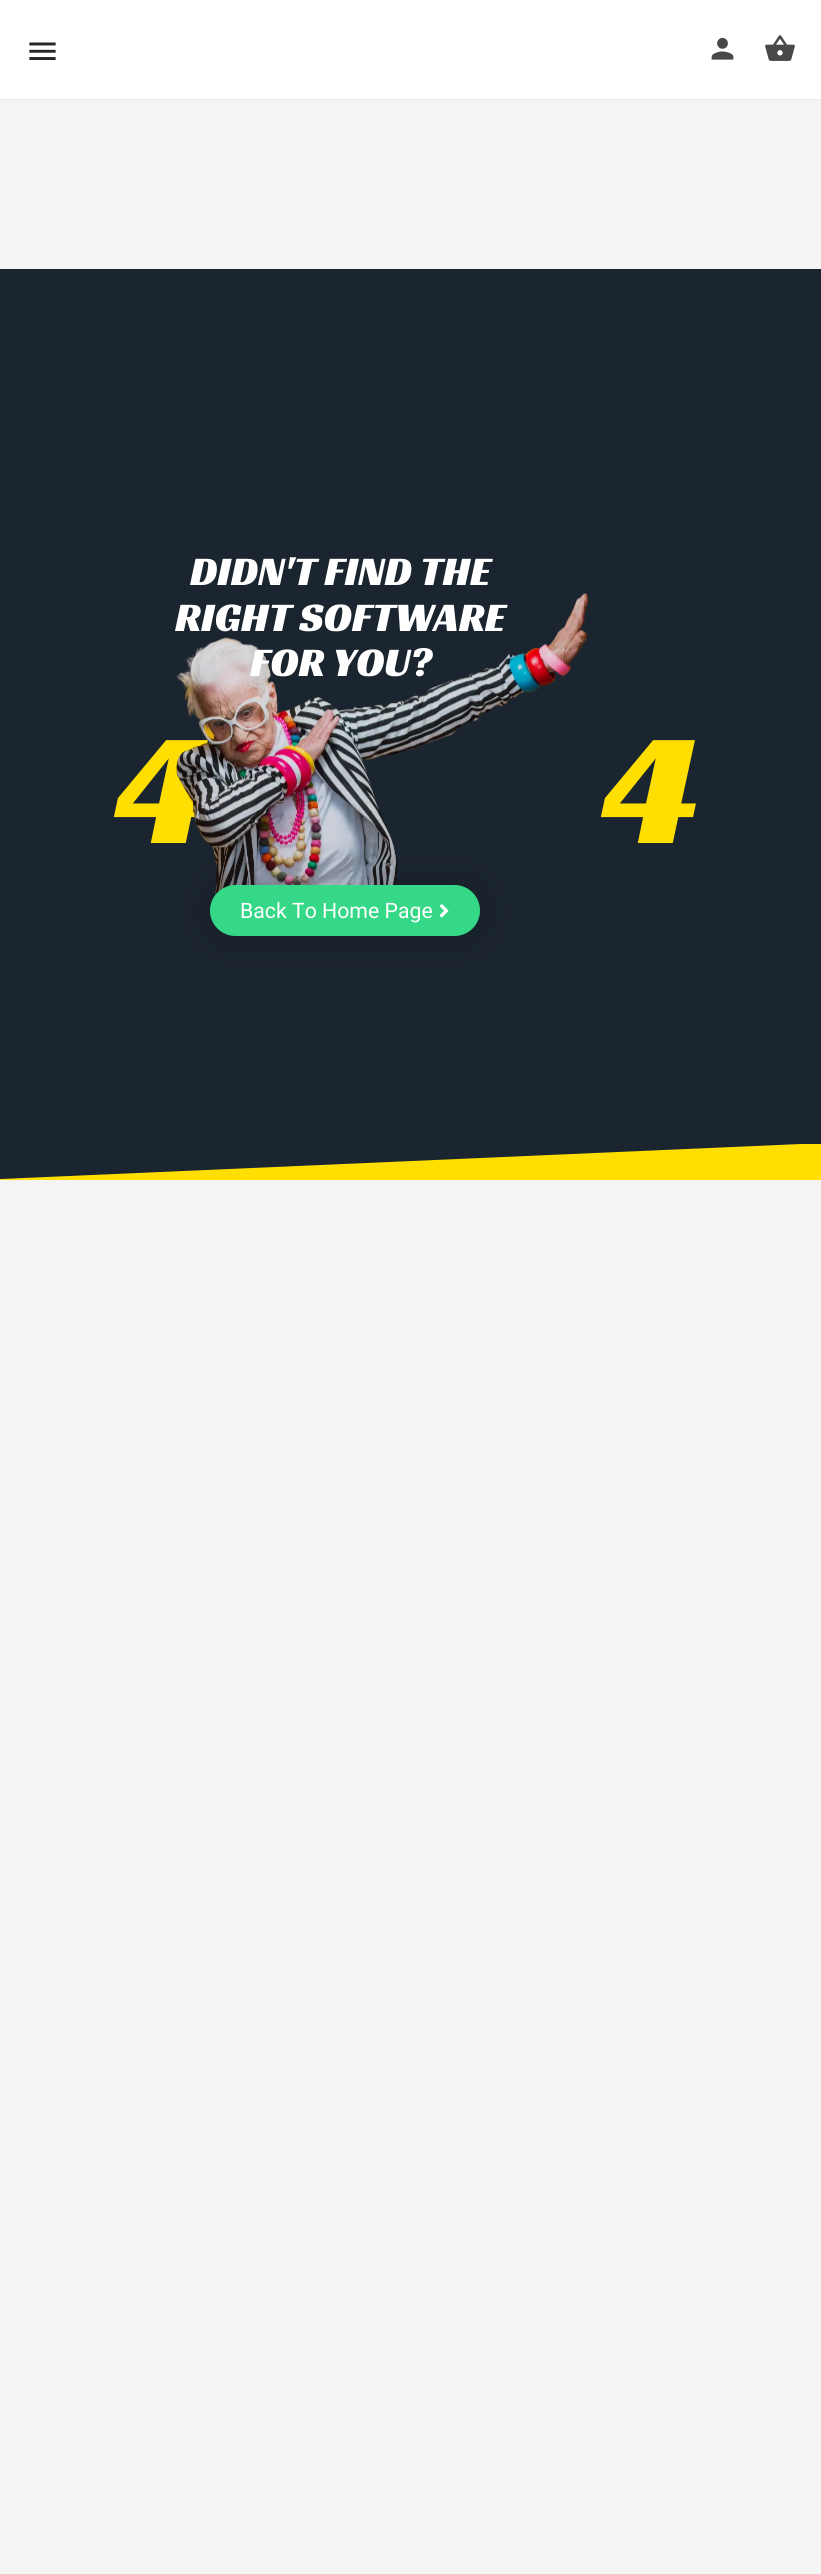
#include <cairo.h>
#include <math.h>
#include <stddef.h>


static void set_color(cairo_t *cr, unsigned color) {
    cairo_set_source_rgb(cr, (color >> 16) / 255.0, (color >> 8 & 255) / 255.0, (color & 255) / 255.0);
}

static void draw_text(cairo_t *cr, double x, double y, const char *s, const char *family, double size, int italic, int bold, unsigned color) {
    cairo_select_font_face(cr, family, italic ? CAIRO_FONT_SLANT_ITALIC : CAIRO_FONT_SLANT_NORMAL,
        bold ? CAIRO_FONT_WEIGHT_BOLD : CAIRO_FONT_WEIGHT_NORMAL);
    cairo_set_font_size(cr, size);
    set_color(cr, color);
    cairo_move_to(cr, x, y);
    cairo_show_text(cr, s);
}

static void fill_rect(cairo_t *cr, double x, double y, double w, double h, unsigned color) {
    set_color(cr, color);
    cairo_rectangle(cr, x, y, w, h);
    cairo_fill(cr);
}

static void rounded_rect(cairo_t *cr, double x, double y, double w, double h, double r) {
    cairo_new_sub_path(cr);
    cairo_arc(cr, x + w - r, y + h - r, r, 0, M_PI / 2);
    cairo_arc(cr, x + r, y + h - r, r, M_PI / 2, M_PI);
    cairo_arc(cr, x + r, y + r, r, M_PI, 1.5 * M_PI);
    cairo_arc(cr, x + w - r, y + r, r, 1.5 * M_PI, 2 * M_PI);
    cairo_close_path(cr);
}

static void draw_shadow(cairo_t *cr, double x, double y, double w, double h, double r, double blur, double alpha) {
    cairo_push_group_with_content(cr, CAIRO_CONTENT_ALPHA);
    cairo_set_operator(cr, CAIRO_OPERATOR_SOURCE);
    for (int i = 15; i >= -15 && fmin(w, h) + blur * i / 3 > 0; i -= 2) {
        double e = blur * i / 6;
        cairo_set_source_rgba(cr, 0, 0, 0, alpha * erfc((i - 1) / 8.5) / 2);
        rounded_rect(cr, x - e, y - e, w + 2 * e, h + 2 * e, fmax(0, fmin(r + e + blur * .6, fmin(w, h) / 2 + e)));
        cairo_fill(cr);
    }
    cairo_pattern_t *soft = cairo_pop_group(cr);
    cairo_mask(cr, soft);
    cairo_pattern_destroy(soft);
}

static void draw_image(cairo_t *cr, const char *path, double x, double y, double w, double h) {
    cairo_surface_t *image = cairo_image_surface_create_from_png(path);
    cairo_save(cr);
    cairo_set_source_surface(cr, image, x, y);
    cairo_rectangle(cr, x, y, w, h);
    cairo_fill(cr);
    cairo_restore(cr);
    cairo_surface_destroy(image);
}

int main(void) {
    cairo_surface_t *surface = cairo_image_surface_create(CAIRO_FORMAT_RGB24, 821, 2574);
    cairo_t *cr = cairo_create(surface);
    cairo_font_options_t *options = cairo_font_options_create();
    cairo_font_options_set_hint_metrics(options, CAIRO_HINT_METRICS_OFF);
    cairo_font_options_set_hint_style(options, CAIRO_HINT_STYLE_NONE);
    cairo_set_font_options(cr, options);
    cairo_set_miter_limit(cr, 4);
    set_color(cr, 0xF4F4F4);
    cairo_paint(cr);
    fill_rect(cr, 0, 0, 821, 99, 0xFFFFFF);
    fill_rect(cr, 0, 99, 821, 1, 0xEBEBEB);
    draw_image(cr, "assets/img1.png", 29, 42, 27, 18);
    draw_image(cr, "assets/img2.png", 711, 37, 23, 23);
    draw_image(cr, "assets/img3.png", 765, 35, 30, 26);
    fill_rect(cr, 0, 269, 821, 910, 0x1B252F);
    draw_text(cr, 114, 843, "4", "Racing Sans One", 162, 0, 0, 0xFFDE01);
    draw_text(cr, 190, 585, "DIDN'T FIND THE", "Racing Sans One", 41.25, 0, 0, 0xFFFFFF);
    draw_image(cr, "assets/img4.png", 176, 593, 412, 301);
    draw_text(cr, 175, 631, "RIGHT SOFTWARE", "Racing Sans One", 41.25, 0, 0, 0xFFFFFF);
    draw_text(cr, 250, 676, "FOR YOU?", "Racing Sans One", 41.25, 0, 0, 0xFFFFFF);
    set_color(cr, 0x000000);
    draw_shadow(cr, 210, 885, 270, 51, 25.5, 19, 0.2);
    set_color(cr, 0x35D886);
    rounded_rect(cr, 210, 885, 270, 51, 25.5);
    cairo_fill(cr);
    draw_text(cr, 240, 918, "Back To Home Page", "Roboto", 21.25, 0, 0, 0xFFFFFF);
    draw_image(cr, "assets/img5.png", 439, 904, 10, 14);
    draw_text(cr, 601, 843, "4", "Racing Sans One", 162, 0, 0, 0xFFDE01);
    cairo_save(cr);
    cairo_rectangle(cr, 0, 1144, 821, 36);
    cairo_clip(cr);
    cairo_new_path(cr);
    cairo_move_to(cr, 0, 1179);
    cairo_line_to(cr, 0, 1181);
    cairo_line_to(cr, 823, 1181);
    cairo_line_to(cr, 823, 1143);
    cairo_close_path(cr);
    cairo_fill(cr);
    cairo_restore(cr);
    cairo_surface_write_to_png(surface, "output.png");
    cairo_font_options_destroy(options);
    cairo_destroy(cr);
    cairo_surface_destroy(surface);
    return 0;
}
